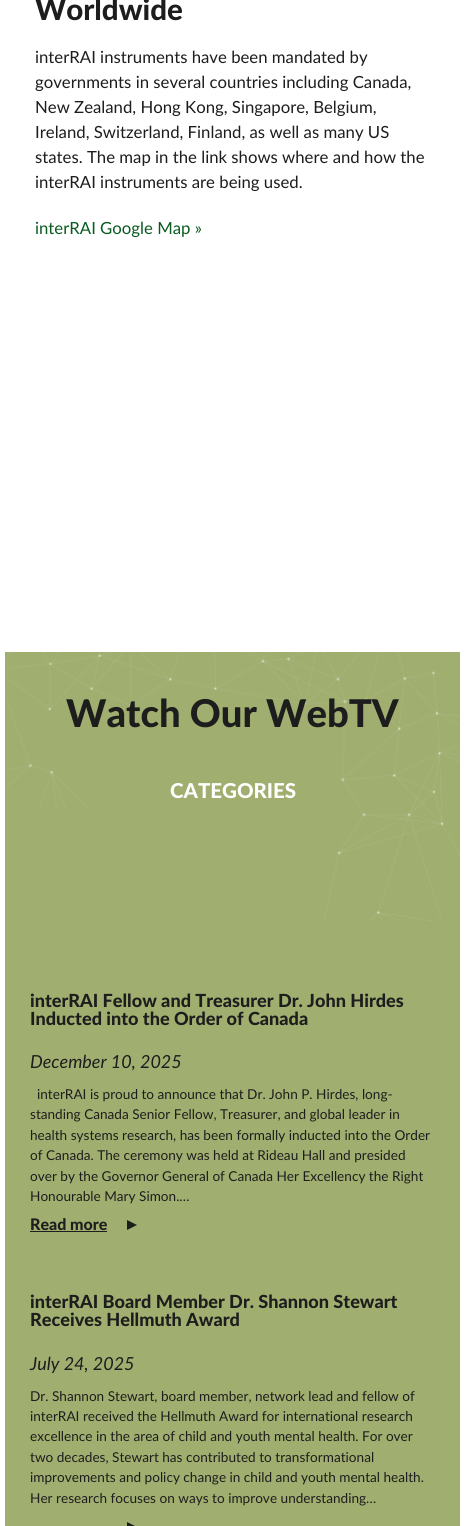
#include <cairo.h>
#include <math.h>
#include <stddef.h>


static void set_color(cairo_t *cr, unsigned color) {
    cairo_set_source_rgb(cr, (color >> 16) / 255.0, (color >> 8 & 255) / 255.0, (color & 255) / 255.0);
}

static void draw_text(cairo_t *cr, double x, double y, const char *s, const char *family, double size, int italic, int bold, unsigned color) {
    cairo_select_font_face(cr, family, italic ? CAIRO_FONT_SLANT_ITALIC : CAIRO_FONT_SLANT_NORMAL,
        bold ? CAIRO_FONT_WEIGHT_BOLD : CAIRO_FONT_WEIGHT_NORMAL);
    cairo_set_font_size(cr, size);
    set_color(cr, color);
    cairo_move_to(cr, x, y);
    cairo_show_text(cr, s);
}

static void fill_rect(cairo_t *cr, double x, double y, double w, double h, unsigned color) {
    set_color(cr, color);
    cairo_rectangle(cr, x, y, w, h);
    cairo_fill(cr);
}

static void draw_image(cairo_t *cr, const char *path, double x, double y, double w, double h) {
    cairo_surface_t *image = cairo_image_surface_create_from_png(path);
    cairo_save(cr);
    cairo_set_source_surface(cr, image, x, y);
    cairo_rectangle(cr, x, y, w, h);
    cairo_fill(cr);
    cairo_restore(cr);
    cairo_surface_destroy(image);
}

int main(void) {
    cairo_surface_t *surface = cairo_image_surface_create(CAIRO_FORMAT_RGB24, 465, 1526);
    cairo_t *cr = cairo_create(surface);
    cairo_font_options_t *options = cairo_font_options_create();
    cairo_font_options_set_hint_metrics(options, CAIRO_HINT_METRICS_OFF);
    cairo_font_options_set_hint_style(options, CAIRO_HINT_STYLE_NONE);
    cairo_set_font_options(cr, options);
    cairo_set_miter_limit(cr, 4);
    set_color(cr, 0xFFFFFF);
    cairo_paint(cr);
    draw_text(cr, 35, 20, "Worldwide", "Lato Black", 29.5, 0, 0, 0x1D1D1D);
    draw_text(cr, 35, 63, "interRAI instruments have been mandated by", "Lato", 16.75, 0, 0, 0x1D1D1D);
    draw_text(cr, 35, 88, "governments in several countries including Canada,", "Lato", 16.75, 0, 0, 0x1D1D1D);
    draw_text(cr, 35, 113, "New Zealand, Hong Kong, Singapore, Belgium,", "Lato", 16.75, 0, 0, 0x1D1D1D);
    draw_text(cr, 35, 138, "Ireland, Switzerland, Finland, as well as many US", "Lato", 16.75, 0, 0, 0x1D1D1D);
    draw_text(cr, 35, 163, "states. The map in the link shows where and how the", "Lato", 16.75, 0, 0, 0x1D1D1D);
    draw_text(cr, 35, 188, "interRAI instruments are being used.", "Lato", 16.75, 0, 0, 0x1D1D1D);
    draw_text(cr, 35, 234, "interRAI Google Map »", "Lato", 16.75, 0, 0, 0x095B20);
    fill_rect(cr, 5, 652, 455, 874, 0xA0AE6F);
    draw_image(cr, "assets/img1.png", 5, 652, 455, 269);
    draw_text(cr, 66, 727, "Watch Our WebTV", "Lato Black", 38.25, 0, 0, 0x1D1D1D);
    draw_text(cr, 170, 798, "CATEGORIES", "Lato Black", 20.5, 0, 0, 0xFFFFFF);
    draw_text(cr, 30, 1007, "interRAI Fellow and Treasurer Dr. John Hirdes", "Lato Black", 18.1, 0, 0, 0x1D1D1D);
    draw_text(cr, 30, 1025, "Inducted into the Order of Canada", "Lato Black", 18.1, 0, 0, 0x1D1D1D);
    draw_text(cr, 30, 1068, "December 10, 2025", "Lato", 18, 1, 0, 0x1D1D1D);
    draw_text(cr, 37, 1099, "interRAI is proud to announce that Dr. John P. Hirdes, long-", "Lato", 13.6, 0, 0, 0x1D1D1D);
    draw_text(cr, 30, 1119, "standing Canada Senior Fellow, Treasurer, and global leader in", "Lato", 13.6, 0, 0, 0x1D1D1D);
    draw_text(cr, 30, 1140, "health systems research, has been formally inducted into the Order", "Lato", 13.6, 0, 0, 0x1D1D1D);
    draw_text(cr, 30, 1160, "of Canada. The ceremony was held at Rideau Hall and presided", "Lato", 13.6, 0, 0, 0x1D1D1D);
    draw_text(cr, 30, 1181, "over by the Governor General of Canada Her Excellency the Right", "Lato", 13.6, 0, 0, 0x1D1D1D);
    draw_text(cr, 30, 1201, "Honourable Mary Simon.…", "Lato", 13.6, 0, 0, 0x1D1D1D);
    draw_text(cr, 30, 1230, "Read more", "Lato Black", 16, 0, 0, 0x1D1D1D);
    fill_rect(cr, 30, 1231, 77, 1, 0x1D1D1D);
    cairo_new_path(cr);
    cairo_move_to(cr, 127, 1230);
    cairo_line_to(cr, 127, 1220);
    cairo_line_to(cr, 137, 1225);
    cairo_close_path(cr);
    cairo_fill(cr);
    draw_text(cr, 30, 1308, "interRAI Board Member Dr. Shannon Stewart", "Lato Black", 18.1, 0, 0, 0x1D1D1D);
    draw_text(cr, 30, 1326, "Receives Hellmuth Award", "Lato Black", 18.1, 0, 0, 0x1D1D1D);
    draw_text(cr, 30, 1370, "July 24, 2025", "Lato", 18, 1, 0, 0x1D1D1D);
    draw_text(cr, 30, 1401, "Dr. Shannon Stewart, board member, network lead and fellow of", "Lato", 13.6, 0, 0, 0x1D1D1D);
    draw_text(cr, 30, 1421, "interRAI received the Hellmuth Award for international research", "Lato", 13.6, 0, 0, 0x1D1D1D);
    draw_text(cr, 30, 1441, "excellence in the area of child and youth mental health. For over", "Lato", 13.6, 0, 0, 0x1D1D1D);
    draw_text(cr, 30, 1462, "two decades, Stewart has contributed to transformational", "Lato", 13.6, 0, 0, 0x1D1D1D);
    draw_text(cr, 30, 1482, "improvements and policy change in child and youth mental health.", "Lato", 13.6, 0, 0, 0x1D1D1D);
    draw_text(cr, 30, 1503, "Her research focuses on ways to improve understanding…", "Lato", 13.6, 0, 0, 0x1D1D1D);
    cairo_new_path(cr);
    cairo_move_to(cr, 127, 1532);
    cairo_line_to(cr, 127, 1522);
    cairo_line_to(cr, 137, 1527);
    cairo_close_path(cr);
    cairo_fill(cr);
    cairo_surface_write_to_png(surface, "output.png");
    cairo_font_options_destroy(options);
    cairo_destroy(cr);
    cairo_surface_destroy(surface);
    return 0;
}
